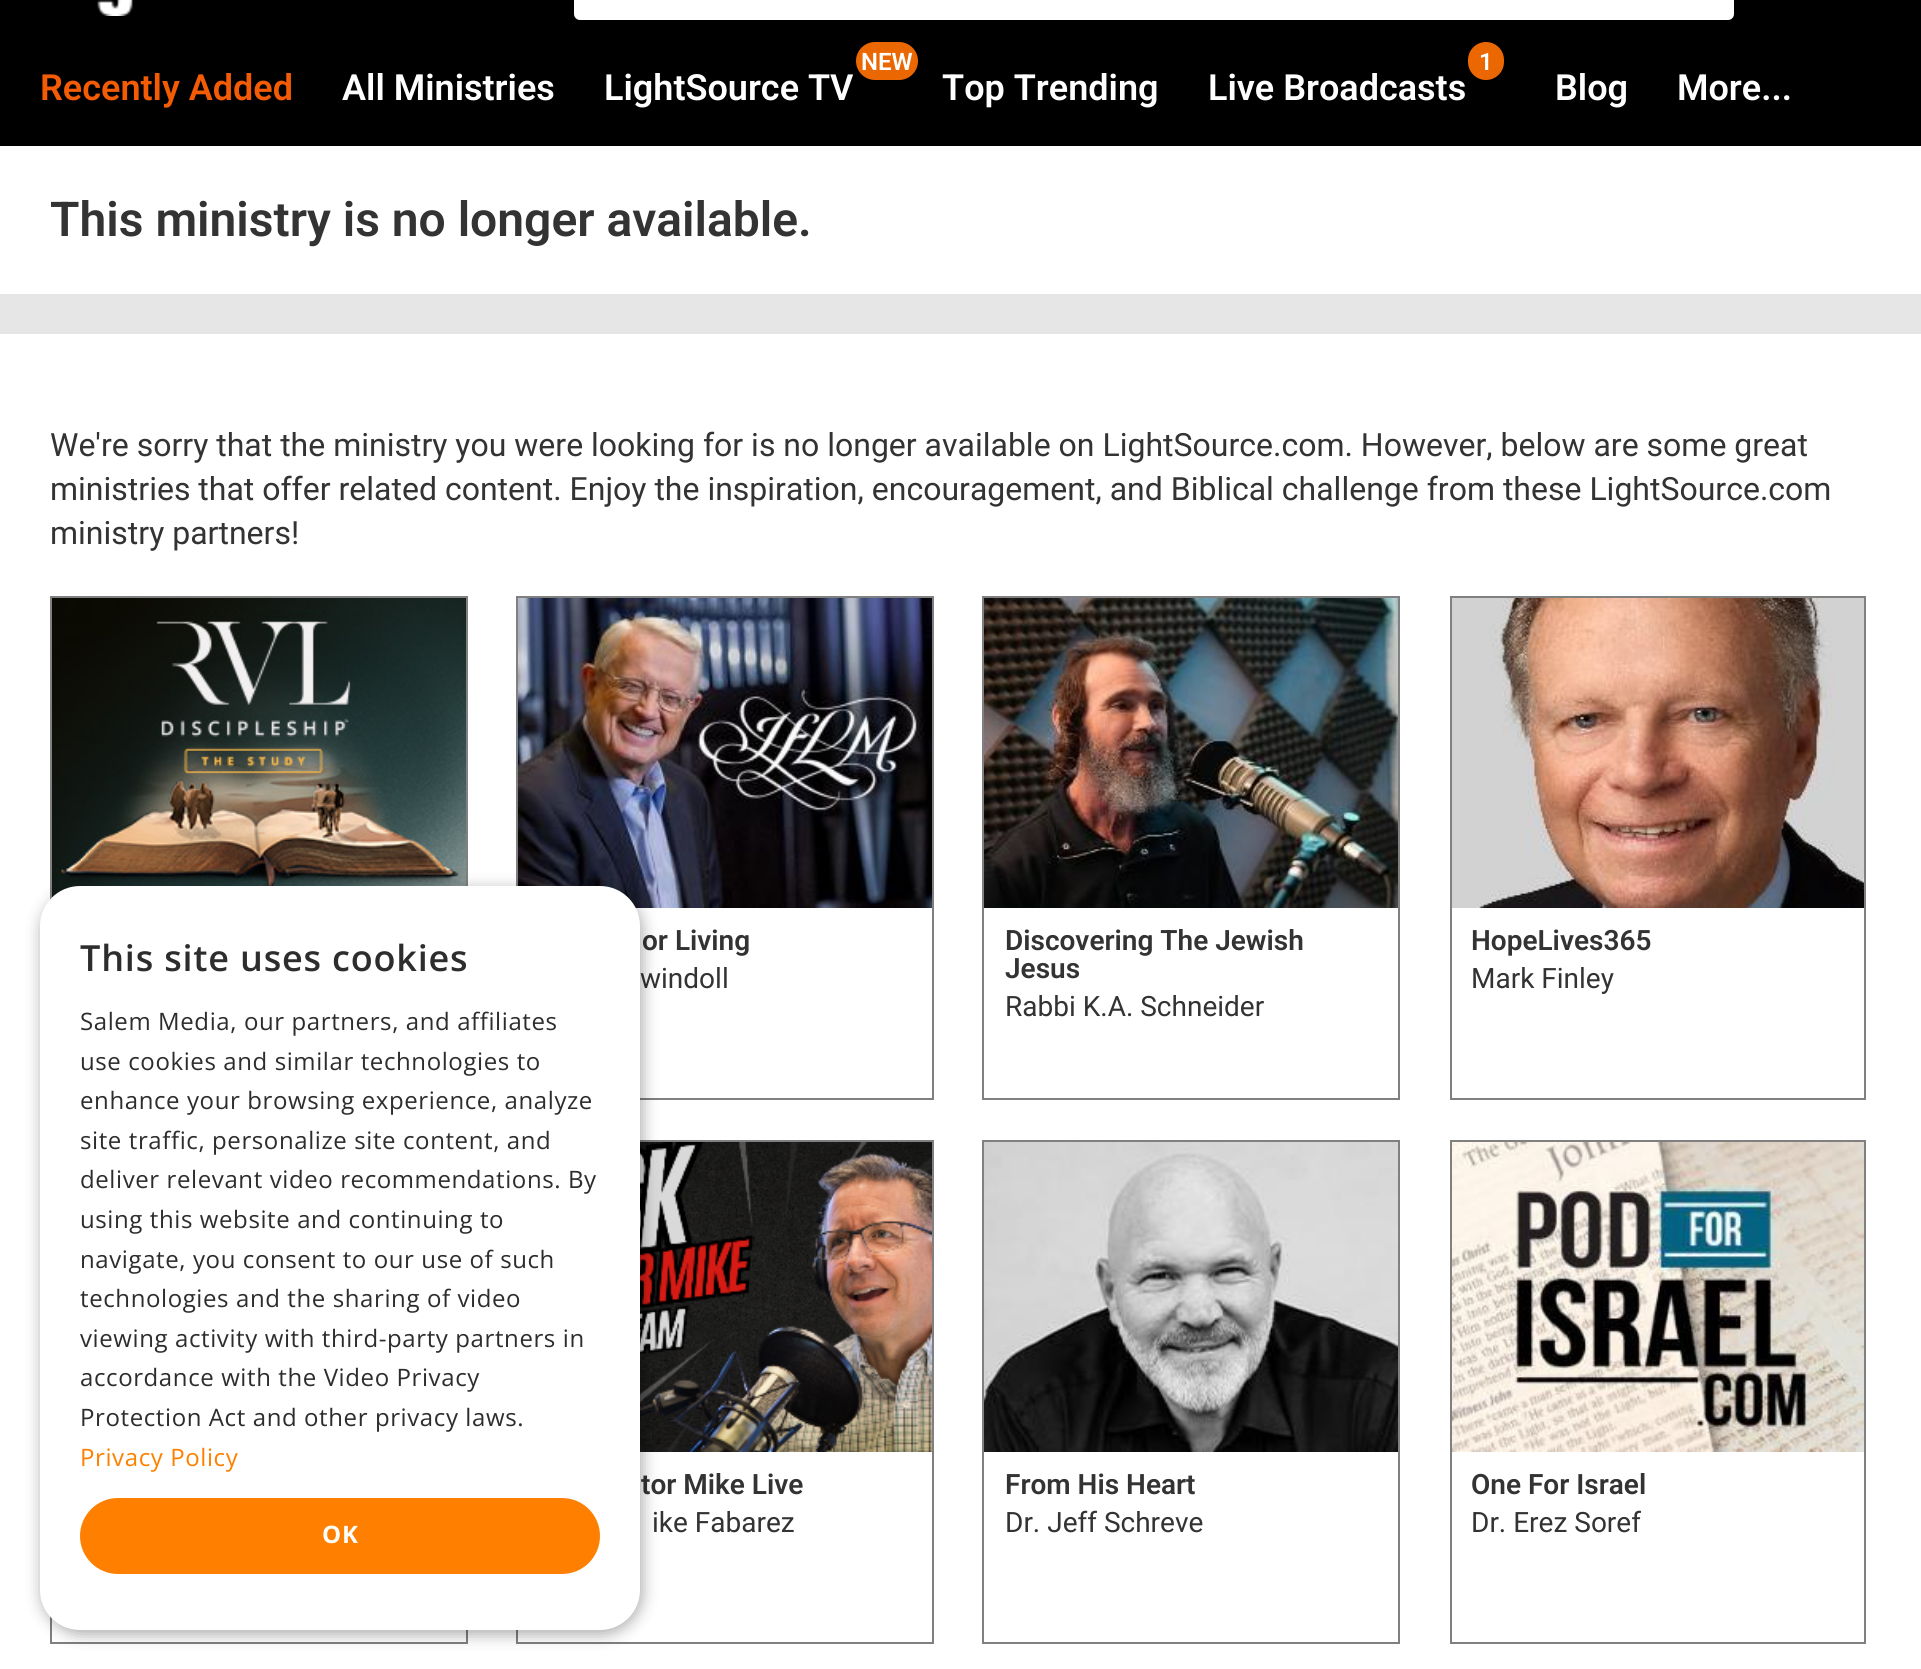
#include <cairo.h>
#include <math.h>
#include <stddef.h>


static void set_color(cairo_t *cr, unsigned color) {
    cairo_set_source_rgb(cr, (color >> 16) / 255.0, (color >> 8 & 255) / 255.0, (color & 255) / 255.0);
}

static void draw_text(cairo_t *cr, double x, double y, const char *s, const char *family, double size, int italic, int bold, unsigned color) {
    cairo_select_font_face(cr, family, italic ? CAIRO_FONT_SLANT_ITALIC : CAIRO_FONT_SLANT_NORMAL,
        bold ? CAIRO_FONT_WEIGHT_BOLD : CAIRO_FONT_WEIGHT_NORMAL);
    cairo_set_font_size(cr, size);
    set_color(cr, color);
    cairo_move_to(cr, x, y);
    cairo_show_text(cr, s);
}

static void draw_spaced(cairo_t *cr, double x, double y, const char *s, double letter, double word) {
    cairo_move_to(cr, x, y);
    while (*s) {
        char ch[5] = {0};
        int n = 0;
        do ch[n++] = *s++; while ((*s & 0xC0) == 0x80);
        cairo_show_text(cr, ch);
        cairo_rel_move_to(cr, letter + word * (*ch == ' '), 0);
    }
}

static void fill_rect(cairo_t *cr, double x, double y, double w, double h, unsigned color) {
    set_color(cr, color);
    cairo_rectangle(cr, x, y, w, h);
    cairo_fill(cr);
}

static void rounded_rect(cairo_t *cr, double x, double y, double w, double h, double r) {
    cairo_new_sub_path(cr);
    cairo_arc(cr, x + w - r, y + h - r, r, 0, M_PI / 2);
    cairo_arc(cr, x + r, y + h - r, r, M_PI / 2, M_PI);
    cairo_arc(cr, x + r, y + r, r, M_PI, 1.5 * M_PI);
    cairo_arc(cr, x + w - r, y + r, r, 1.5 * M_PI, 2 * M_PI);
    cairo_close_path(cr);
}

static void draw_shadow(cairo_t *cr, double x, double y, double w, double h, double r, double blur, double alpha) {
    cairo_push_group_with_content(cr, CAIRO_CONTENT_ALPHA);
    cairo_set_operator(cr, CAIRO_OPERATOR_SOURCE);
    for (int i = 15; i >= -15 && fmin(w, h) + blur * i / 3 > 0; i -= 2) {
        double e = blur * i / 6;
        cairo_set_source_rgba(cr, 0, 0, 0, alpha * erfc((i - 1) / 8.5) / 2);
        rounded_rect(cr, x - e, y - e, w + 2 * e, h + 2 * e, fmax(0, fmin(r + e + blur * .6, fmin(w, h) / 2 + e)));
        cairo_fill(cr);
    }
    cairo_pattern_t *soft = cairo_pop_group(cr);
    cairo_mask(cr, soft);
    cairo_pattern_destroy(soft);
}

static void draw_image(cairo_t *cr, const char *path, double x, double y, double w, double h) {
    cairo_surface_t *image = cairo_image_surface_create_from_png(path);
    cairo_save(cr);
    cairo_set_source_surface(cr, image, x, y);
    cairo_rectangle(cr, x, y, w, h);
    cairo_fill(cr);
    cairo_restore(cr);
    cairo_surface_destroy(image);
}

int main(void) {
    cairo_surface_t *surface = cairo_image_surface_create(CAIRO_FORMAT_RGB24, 1921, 1669);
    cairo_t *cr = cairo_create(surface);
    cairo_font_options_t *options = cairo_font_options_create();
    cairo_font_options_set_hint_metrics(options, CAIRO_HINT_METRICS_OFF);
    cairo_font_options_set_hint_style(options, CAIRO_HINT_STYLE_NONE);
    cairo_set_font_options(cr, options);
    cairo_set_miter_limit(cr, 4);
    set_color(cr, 0xE6E6E6);
    cairo_paint(cr);
    fill_rect(cr, 0, 0, 1921, 146, 0x000000);
    draw_image(cr, "assets/img1.png", 97, 0, 36, 16);
    set_color(cr, 0xFFFFFF);
    rounded_rect(cr, 574, -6, 1160, 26, 6);
    cairo_fill(cr);
    draw_text(cr, 40, 100, "Recently Added", "Roboto SemiBold", 36, 0, 0, 0xF35B04);
    draw_text(cr, 342, 100, "All Ministries", "Roboto SemiBold", 36, 0, 0, 0xFFFFFF);
    set_color(cr, 0xEB6701);
    rounded_rect(cr, 856, 42, 62, 38, 19);
    cairo_fill(cr);
    draw_text(cr, 861, 70, "NEW", "Roboto SemiBold", 24, 0, 0, 0xFFFFFF);
    draw_text(cr, 604, 100, "LightSource TV", "Roboto SemiBold", 36, 0, 0, 0xFFFFFF);
    draw_text(cr, 942, 100, "Top Trending", "Roboto SemiBold", 36, 0, 0, 0xFFFFFF);
    set_color(cr, 0xEB6701);
    rounded_rect(cr, 1468, 42, 36, 38, 18);
    cairo_fill(cr);
    draw_text(cr, 1479, 70, "1", "Roboto SemiBold", 24, 0, 0, 0xFFFFFF);
    draw_text(cr, 1208, 100, "Live Broadcasts", "Roboto SemiBold", 36, 0, 0, 0xFFFFFF);
    draw_text(cr, 1555, 100, "Blog", "Roboto SemiBold", 36, 0, 0, 0xFFFFFF);
    draw_text(cr, 1677, 100, "More...", "Roboto SemiBold", 36, 0, 0, 0xFFFFFF);
    fill_rect(cr, 0, 146, 1921, 148, 0xFFFFFF);
    draw_text(cr, 50, 236, "This ministry is no longer available.", "Roboto SemiBold", 48, 0, 0, 0x333333);
    fill_rect(cr, 0, 334, 1921, 1335, 0xFFFFFF);
    draw_text(cr, 50, 456, "We're sorry that the ministry you were looking for is no longer available on LightSource.com. However, below are some great", "Roboto", 32, 0, 0, 0x333333);
    draw_text(cr, 50, 500, "ministries that offer related content. Enjoy the inspiration, encouragement, and Biblical challenge from these LightSource.com", "Roboto", 32, 0, 0, 0x333333);
    draw_text(cr, 50, 544, "ministry partners!", "Roboto", 32, 0, 0, 0x333333);
    cairo_rectangle(cr, 51, 597, 416, 502);
    set_color(cr, 0x808080);
    cairo_stroke(cr);
    draw_image(cr, "assets/img2.png", 52, 598, 414, 300);
    cairo_rectangle(cr, 517, 597, 416, 502);
    cairo_stroke(cr);
    draw_image(cr, "assets/img3.png", 518, 598, 414, 310);
    draw_text(cr, 642, 950, "or Living", "Roboto SemiBold", 28, 0, 0, 0x333333);
    draw_text(cr, 640, 988, "windoll", "Roboto", 28, 0, 0, 0x333333);
    cairo_rectangle(cr, 983, 597, 416, 502);
    set_color(cr, 0x808080);
    cairo_stroke(cr);
    draw_image(cr, "assets/img4.png", 984, 598, 414, 310);
    draw_text(cr, 1005, 950, "Discovering The Jewish", "Roboto SemiBold", 28, 0, 0, 0x333333);
    draw_text(cr, 1005, 978, "Jesus", "Roboto SemiBold", 28, 0, 0, 0x333333);
    draw_text(cr, 1005, 1016, "Rabbi K.A. Schneider", "Roboto", 28, 0, 0, 0x333333);
    cairo_rectangle(cr, 1451, 597, 414, 502);
    set_color(cr, 0x808080);
    cairo_stroke(cr);
    draw_image(cr, "assets/img5.png", 1452, 598, 412, 310);
    draw_text(cr, 1471, 950, "HopeLives365", "Roboto SemiBold", 28, 0, 0, 0x333333);
    draw_text(cr, 1471, 988, "Mark Finley", "Roboto", 28, 0, 0, 0x333333);
    cairo_rectangle(cr, 51, 1141, 416, 502);
    set_color(cr, 0x808080);
    cairo_stroke(cr);
    cairo_rectangle(cr, 517, 1141, 416, 502);
    cairo_stroke(cr);
    draw_image(cr, "assets/img6.png", 640, 1142, 292, 310);
    draw_text(cr, 641, 1494, "tor Mike Live", "Roboto SemiBold", 28, 0, 0, 0x333333);
    draw_text(cr, 652, 1532, "ike Fabarez", "Roboto", 28, 0, 0, 0x333333);
    cairo_rectangle(cr, 983, 1141, 416, 502);
    set_color(cr, 0x808080);
    cairo_stroke(cr);
    draw_image(cr, "assets/img7.png", 984, 1142, 414, 310);
    draw_text(cr, 1005, 1494, "From His Heart", "Roboto SemiBold", 28, 0, 0, 0x333333);
    draw_text(cr, 1005, 1532, "Dr. Jeff Schreve", "Roboto", 28, 0, 0, 0x333333);
    cairo_rectangle(cr, 1451, 1141, 414, 502);
    set_color(cr, 0x808080);
    cairo_stroke(cr);
    draw_image(cr, "assets/img8.png", 1452, 1142, 412, 310);
    draw_text(cr, 1471, 1494, "One For Israel", "Roboto SemiBold", 28, 0, 0, 0x333333);
    draw_text(cr, 1471, 1532, "Dr. Erez Soref", "Roboto", 28, 0, 0, 0x333333);
    set_color(cr, 0x000000);
    draw_shadow(cr, 42, 890, 600, 744, 40, 8, 0.35);
    set_color(cr, 0xFFFFFF);
    rounded_rect(cr, 40, 886, 600, 744, 40);
    cairo_fill(cr);
    cairo_select_font_face(cr, "Open Sans SemiBold", CAIRO_FONT_SLANT_NORMAL, CAIRO_FONT_WEIGHT_NORMAL);
    cairo_set_font_size(cr, 36);
    set_color(cr, 0x2D2D2D);
    draw_spaced(cr, 80, 971, "This site uses cookies", 0.8, 0);
    cairo_select_font_face(cr, "Open Sans", CAIRO_FONT_SLANT_NORMAL, CAIRO_FONT_WEIGHT_NORMAL);
    cairo_set_font_size(cr, 24);
    draw_spaced(cr, 80, 1030, "Salem Media, our partners, and affiliates", 0.6, 0);
    draw_spaced(cr, 80, 1070, "use cookies and similar technologies to", 0.6, 0);
    draw_spaced(cr, 80, 1109, "enhance your browsing experience, analyze", 0.6, 0);
    draw_spaced(cr, 80, 1149, "site traffic, personalize site content, and", 0.6, 0);
    draw_spaced(cr, 80, 1188, "deliver relevant video recommendations. By", 0.6, 0);
    draw_spaced(cr, 80, 1228, "using this website and continuing to", 0.6, 0);
    draw_spaced(cr, 80, 1268, "navigate, you consent to our use of such", 0.6, 0);
    draw_spaced(cr, 80, 1307, "technologies and the sharing of video", 0.6, 0);
    draw_spaced(cr, 80, 1347, "viewing activity with third-party partners in", 0.6, 0);
    draw_spaced(cr, 80, 1386, "accordance with the Video Privacy", 0.6, 0);
    draw_spaced(cr, 80, 1426, "Protection Act and other privacy laws.", 0.6, 0);
    set_color(cr, 0xFF8000);
    draw_spaced(cr, 80, 1466, "Privacy Policy", 0.6, 0);
    rounded_rect(cr, 80, 1498, 520, 76, 38);
    cairo_fill(cr);
    cairo_select_font_face(cr, "Open Sans", CAIRO_FONT_SLANT_NORMAL, CAIRO_FONT_WEIGHT_BOLD);
    set_color(cr, 0xFFFFFF);
    draw_spaced(cr, 322, 1543, "OK", 0.8, 0);
    cairo_surface_write_to_png(surface, "output.png");
    cairo_font_options_destroy(options);
    cairo_destroy(cr);
    cairo_surface_destroy(surface);
    return 0;
}
